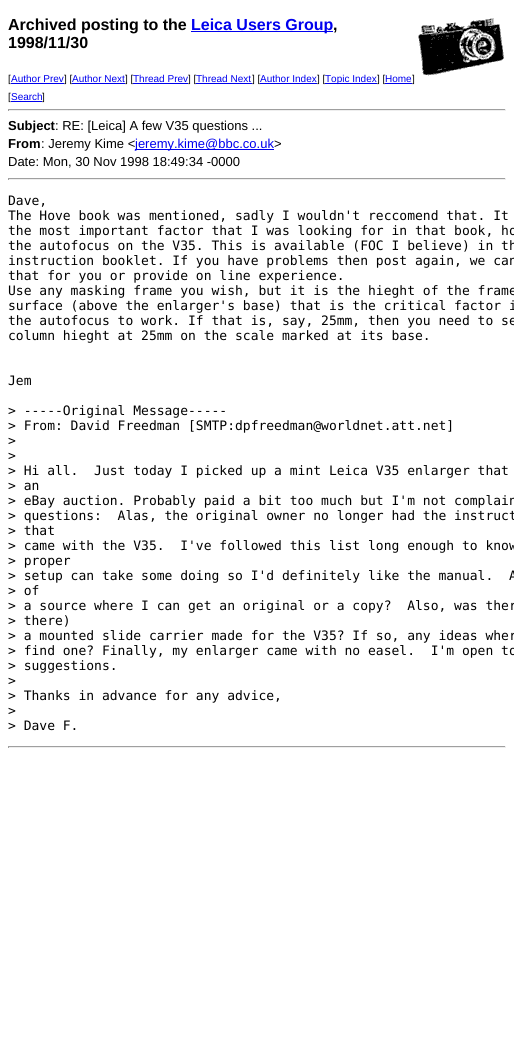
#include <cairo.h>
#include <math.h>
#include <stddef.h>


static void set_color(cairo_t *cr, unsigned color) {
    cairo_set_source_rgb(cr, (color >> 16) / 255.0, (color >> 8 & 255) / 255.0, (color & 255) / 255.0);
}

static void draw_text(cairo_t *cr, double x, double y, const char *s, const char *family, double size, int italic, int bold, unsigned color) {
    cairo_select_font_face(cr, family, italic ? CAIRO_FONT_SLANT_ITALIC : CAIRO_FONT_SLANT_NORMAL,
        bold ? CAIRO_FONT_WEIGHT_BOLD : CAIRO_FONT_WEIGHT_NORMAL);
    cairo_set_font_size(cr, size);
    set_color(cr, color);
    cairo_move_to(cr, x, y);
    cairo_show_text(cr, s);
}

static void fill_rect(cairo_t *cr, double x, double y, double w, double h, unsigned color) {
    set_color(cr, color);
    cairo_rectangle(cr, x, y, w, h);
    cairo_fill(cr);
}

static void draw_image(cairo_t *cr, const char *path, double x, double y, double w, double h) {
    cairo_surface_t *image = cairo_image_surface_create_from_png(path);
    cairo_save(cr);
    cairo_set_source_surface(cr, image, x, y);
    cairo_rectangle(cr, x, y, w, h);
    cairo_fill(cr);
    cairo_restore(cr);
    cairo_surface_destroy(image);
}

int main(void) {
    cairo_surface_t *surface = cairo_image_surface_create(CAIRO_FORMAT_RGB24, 514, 1062);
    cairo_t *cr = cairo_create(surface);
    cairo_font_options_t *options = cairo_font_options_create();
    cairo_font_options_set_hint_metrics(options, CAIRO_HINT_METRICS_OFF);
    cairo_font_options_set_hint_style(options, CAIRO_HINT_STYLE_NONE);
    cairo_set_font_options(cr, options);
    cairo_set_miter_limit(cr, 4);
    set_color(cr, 0xFFFFFF);
    cairo_paint(cr);
    draw_text(cr, 8, 30, "Archived posting to the", "Liberation Sans", 16, 0, 1, 0x000000);
    fill_rect(cr, 191, 31, 142, 1, 0x0000EE);
    draw_text(cr, 191, 30, "Leica Users Group", "Liberation Sans", 16, 0, 1, 0x0000EE);
    draw_text(cr, 333, 30, ",", "Liberation Sans", 16, 0, 1, 0x000000);
    draw_text(cr, 8, 48, "1998/11/30", "Liberation Sans", 16, 0, 1, 0x000000);
    draw_image(cr, "assets/img1.png", 418, 18, 86, 58);
    draw_text(cr, 8, 82, "[", "Liberation Sans", 10, 0, 0, 0x000000);
    draw_text(cr, 11, 82, "Author Prev", "Liberation Sans", 10, 0, 0, 0x0000EE);
    fill_rect(cr, 11, 83, 53, 1, 0x0000EE);
    draw_text(cr, 64, 82, "] [", "Liberation Sans", 10, 0, 0, 0x000000);
    draw_text(cr, 72, 82, "Author Next", "Liberation Sans", 10, 0, 0, 0x0000EE);
    fill_rect(cr, 72, 83, 53, 1, 0x0000EE);
    draw_text(cr, 125, 82, "] [", "Liberation Sans", 10, 0, 0, 0x000000);
    draw_text(cr, 133, 82, "Thread Prev", "Liberation Sans", 10, 0, 0, 0x0000EE);
    fill_rect(cr, 133, 83, 55, 1, 0x0000EE);
    draw_text(cr, 188, 82, "] [", "Liberation Sans", 10, 0, 0, 0x000000);
    draw_text(cr, 196, 82, "Thread Next", "Liberation Sans", 10, 0, 0, 0x0000EE);
    fill_rect(cr, 196, 83, 56, 1, 0x0000EE);
    draw_text(cr, 252, 82, "] [", "Liberation Sans", 10, 0, 0, 0x000000);
    draw_text(cr, 260, 82, "Author Index", "Liberation Sans", 10, 0, 0, 0x0000EE);
    fill_rect(cr, 260, 83, 57, 1, 0x0000EE);
    draw_text(cr, 317, 82, "] [", "Liberation Sans", 10, 0, 0, 0x000000);
    fill_rect(cr, 325, 83, 52, 1, 0x0000EE);
    draw_text(cr, 325, 82, "Topic Index", "Liberation Sans", 10, 0, 0, 0x0000EE);
    draw_text(cr, 377, 82, "] [", "Liberation Sans", 10, 0, 0, 0x000000);
    draw_text(cr, 385, 82, "Home", "Liberation Sans", 10, 0, 0, 0x0000EE);
    fill_rect(cr, 385, 83, 27, 1, 0x0000EE);
    draw_text(cr, 412, 82, "]", "Liberation Sans", 10, 0, 0, 0x000000);
    draw_text(cr, 8, 100, "[", "Liberation Sans", 10, 0, 0, 0x000000);
    draw_text(cr, 11, 100, "Search", "Liberation Sans", 10, 0, 0, 0x0000EE);
    fill_rect(cr, 11, 101, 31, 1, 0x0000EE);
    draw_text(cr, 42, 100, "]", "Liberation Sans", 10, 0, 0, 0x000000);
    fill_rect(cr, 8, 109, 498, 1, 0x9F9F9F);
    fill_rect(cr, 505, 109, 1, 2, 0xEEEEEE);
    fill_rect(cr, 8, 110, 498, 1, 0xEEEEEE);
    fill_rect(cr, 8, 109, 1, 2, 0x9F9F9F);
    draw_text(cr, 8, 130, "Subject", "Liberation Sans", 13, 0, 1, 0x000000);
    draw_text(cr, 55, 130, ": RE: [Leica] A few V35 questions ...", "Liberation Sans", 13, 0, 0, 0x000000);
    draw_text(cr, 8, 148, "From", "Liberation Sans", 13, 0, 1, 0x000000);
    draw_text(cr, 41, 148, ": Jeremy Kime <", "Liberation Sans", 13, 0, 0, 0x000000);
    fill_rect(cr, 135, 149, 139, 1, 0x0000EE);
    draw_text(cr, 135, 148, "jeremy.kime@bbc.co.uk", "Liberation Sans", 13, 0, 0, 0x0000EE);
    draw_text(cr, 274, 148, ">", "Liberation Sans", 13, 0, 0, 0x000000);
    draw_text(cr, 8, 166, "Date: Mon, 30 Nov 1998 18:49:34 -0000", "Liberation Sans", 13, 0, 0, 0x000000);
    fill_rect(cr, 8, 178, 498, 1, 0x9F9F9F);
    fill_rect(cr, 505, 178, 1, 2, 0xEEEEEE);
    fill_rect(cr, 8, 179, 498, 1, 0xEEEEEE);
    fill_rect(cr, 8, 178, 1, 2, 0x9F9F9F);
    draw_text(cr, 8, 205, "Dave,", "DejaVu Sans Mono", 13, 0, 0, 0x000000);
    draw_text(cr, 8, 220, "The Hove book was mentioned, sadly I wouldn't reccomend that. It", "DejaVu Sans Mono", 13, 0, 0, 0x000000);
    draw_text(cr, 8, 235, "the most important factor that I was looking for in that book, ho", "DejaVu Sans Mono", 13, 0, 0, 0x000000);
    draw_text(cr, 8, 250, "the autofocus on the V35. This is available (FOC I believe) in th", "DejaVu Sans Mono", 13, 0, 0, 0x000000);
    draw_text(cr, 8, 265, "instruction booklet. If you have problems then post again, we can", "DejaVu Sans Mono", 13, 0, 0, 0x000000);
    draw_text(cr, 8, 280, "that for you or provide on line experience.", "DejaVu Sans Mono", 13, 0, 0, 0x000000);
    draw_text(cr, 8, 295, "Use any masking frame you wish, but it is the hieght of the frame", "DejaVu Sans Mono", 13, 0, 0, 0x000000);
    draw_text(cr, 8, 310, "surface (above the enlarger's base) that is the critical factor i", "DejaVu Sans Mono", 13, 0, 0, 0x000000);
    draw_text(cr, 8, 325, "the autofocus to work. If that is, say, 25mm, then you need to se", "DejaVu Sans Mono", 13, 0, 0, 0x000000);
    draw_text(cr, 8, 340, "column hieght at 25mm on the scale marked at its base.", "DejaVu Sans Mono", 13, 0, 0, 0x000000);
    draw_text(cr, 8, 385, "Jem", "DejaVu Sans Mono", 13, 0, 0, 0x000000);
    draw_text(cr, 8, 415, "> -----Original Message-----", "DejaVu Sans Mono", 13, 0, 0, 0x000000);
    draw_text(cr, 8, 430, "> From: David Freedman [SMTP:dpfreedman@worldnet.att.net]", "DejaVu Sans Mono", 13, 0, 0, 0x000000);
    draw_text(cr, 8, 445, ">", "DejaVu Sans Mono", 13, 0, 0, 0x000000);
    draw_text(cr, 8, 460, ">", "DejaVu Sans Mono", 13, 0, 0, 0x000000);
    draw_text(cr, 8, 475, "> Hi all.  Just today I picked up a mint Leica V35 enlarger that", "DejaVu Sans Mono", 13, 0, 0, 0x000000);
    draw_text(cr, 8, 490, "> an", "DejaVu Sans Mono", 13, 0, 0, 0x000000);
    draw_text(cr, 8, 505, "> eBay auction. Probably paid a bit too much but I'm not complain", "DejaVu Sans Mono", 13, 0, 0, 0x000000);
    draw_text(cr, 8, 520, "> questions:  Alas, the original owner no longer had the instruct", "DejaVu Sans Mono", 13, 0, 0, 0x000000);
    draw_text(cr, 8, 535, "> that", "DejaVu Sans Mono", 13, 0, 0, 0x000000);
    draw_text(cr, 8, 550, "> came with the V35.  I've followed this list long enough to know", "DejaVu Sans Mono", 13, 0, 0, 0x000000);
    draw_text(cr, 8, 565, "> proper", "DejaVu Sans Mono", 13, 0, 0, 0x000000);
    draw_text(cr, 8, 580, "> setup can take some doing so I'd definitely like the manual.  A", "DejaVu Sans Mono", 13, 0, 0, 0x000000);
    draw_text(cr, 8, 595, "> of", "DejaVu Sans Mono", 13, 0, 0, 0x000000);
    draw_text(cr, 8, 610, "> a source where I can get an original or a copy?  Also, was ther", "DejaVu Sans Mono", 13, 0, 0, 0x000000);
    draw_text(cr, 8, 625, "> there)", "DejaVu Sans Mono", 13, 0, 0, 0x000000);
    draw_text(cr, 8, 640, "> a mounted slide carrier made for the V35? If so, any ideas wher", "DejaVu Sans Mono", 13, 0, 0, 0x000000);
    draw_text(cr, 8, 655, "> find one? Finally, my enlarger came with no easel.  I'm open to", "DejaVu Sans Mono", 13, 0, 0, 0x000000);
    draw_text(cr, 8, 670, "> suggestions.", "DejaVu Sans Mono", 13, 0, 0, 0x000000);
    draw_text(cr, 8, 685, ">", "DejaVu Sans Mono", 13, 0, 0, 0x000000);
    draw_text(cr, 8, 700, "> Thanks in advance for any advice,", "DejaVu Sans Mono", 13, 0, 0, 0x000000);
    draw_text(cr, 8, 715, ">", "DejaVu Sans Mono", 13, 0, 0, 0x000000);
    draw_text(cr, 8, 730, "> Dave F.", "DejaVu Sans Mono", 13, 0, 0, 0x000000);
    fill_rect(cr, 8, 746, 498, 1, 0x9F9F9F);
    fill_rect(cr, 505, 746, 1, 2, 0xEEEEEE);
    fill_rect(cr, 8, 747, 498, 1, 0xEEEEEE);
    fill_rect(cr, 8, 746, 1, 2, 0x9F9F9F);
    cairo_surface_write_to_png(surface, "output.png");
    cairo_font_options_destroy(options);
    cairo_destroy(cr);
    cairo_surface_destroy(surface);
    return 0;
}
